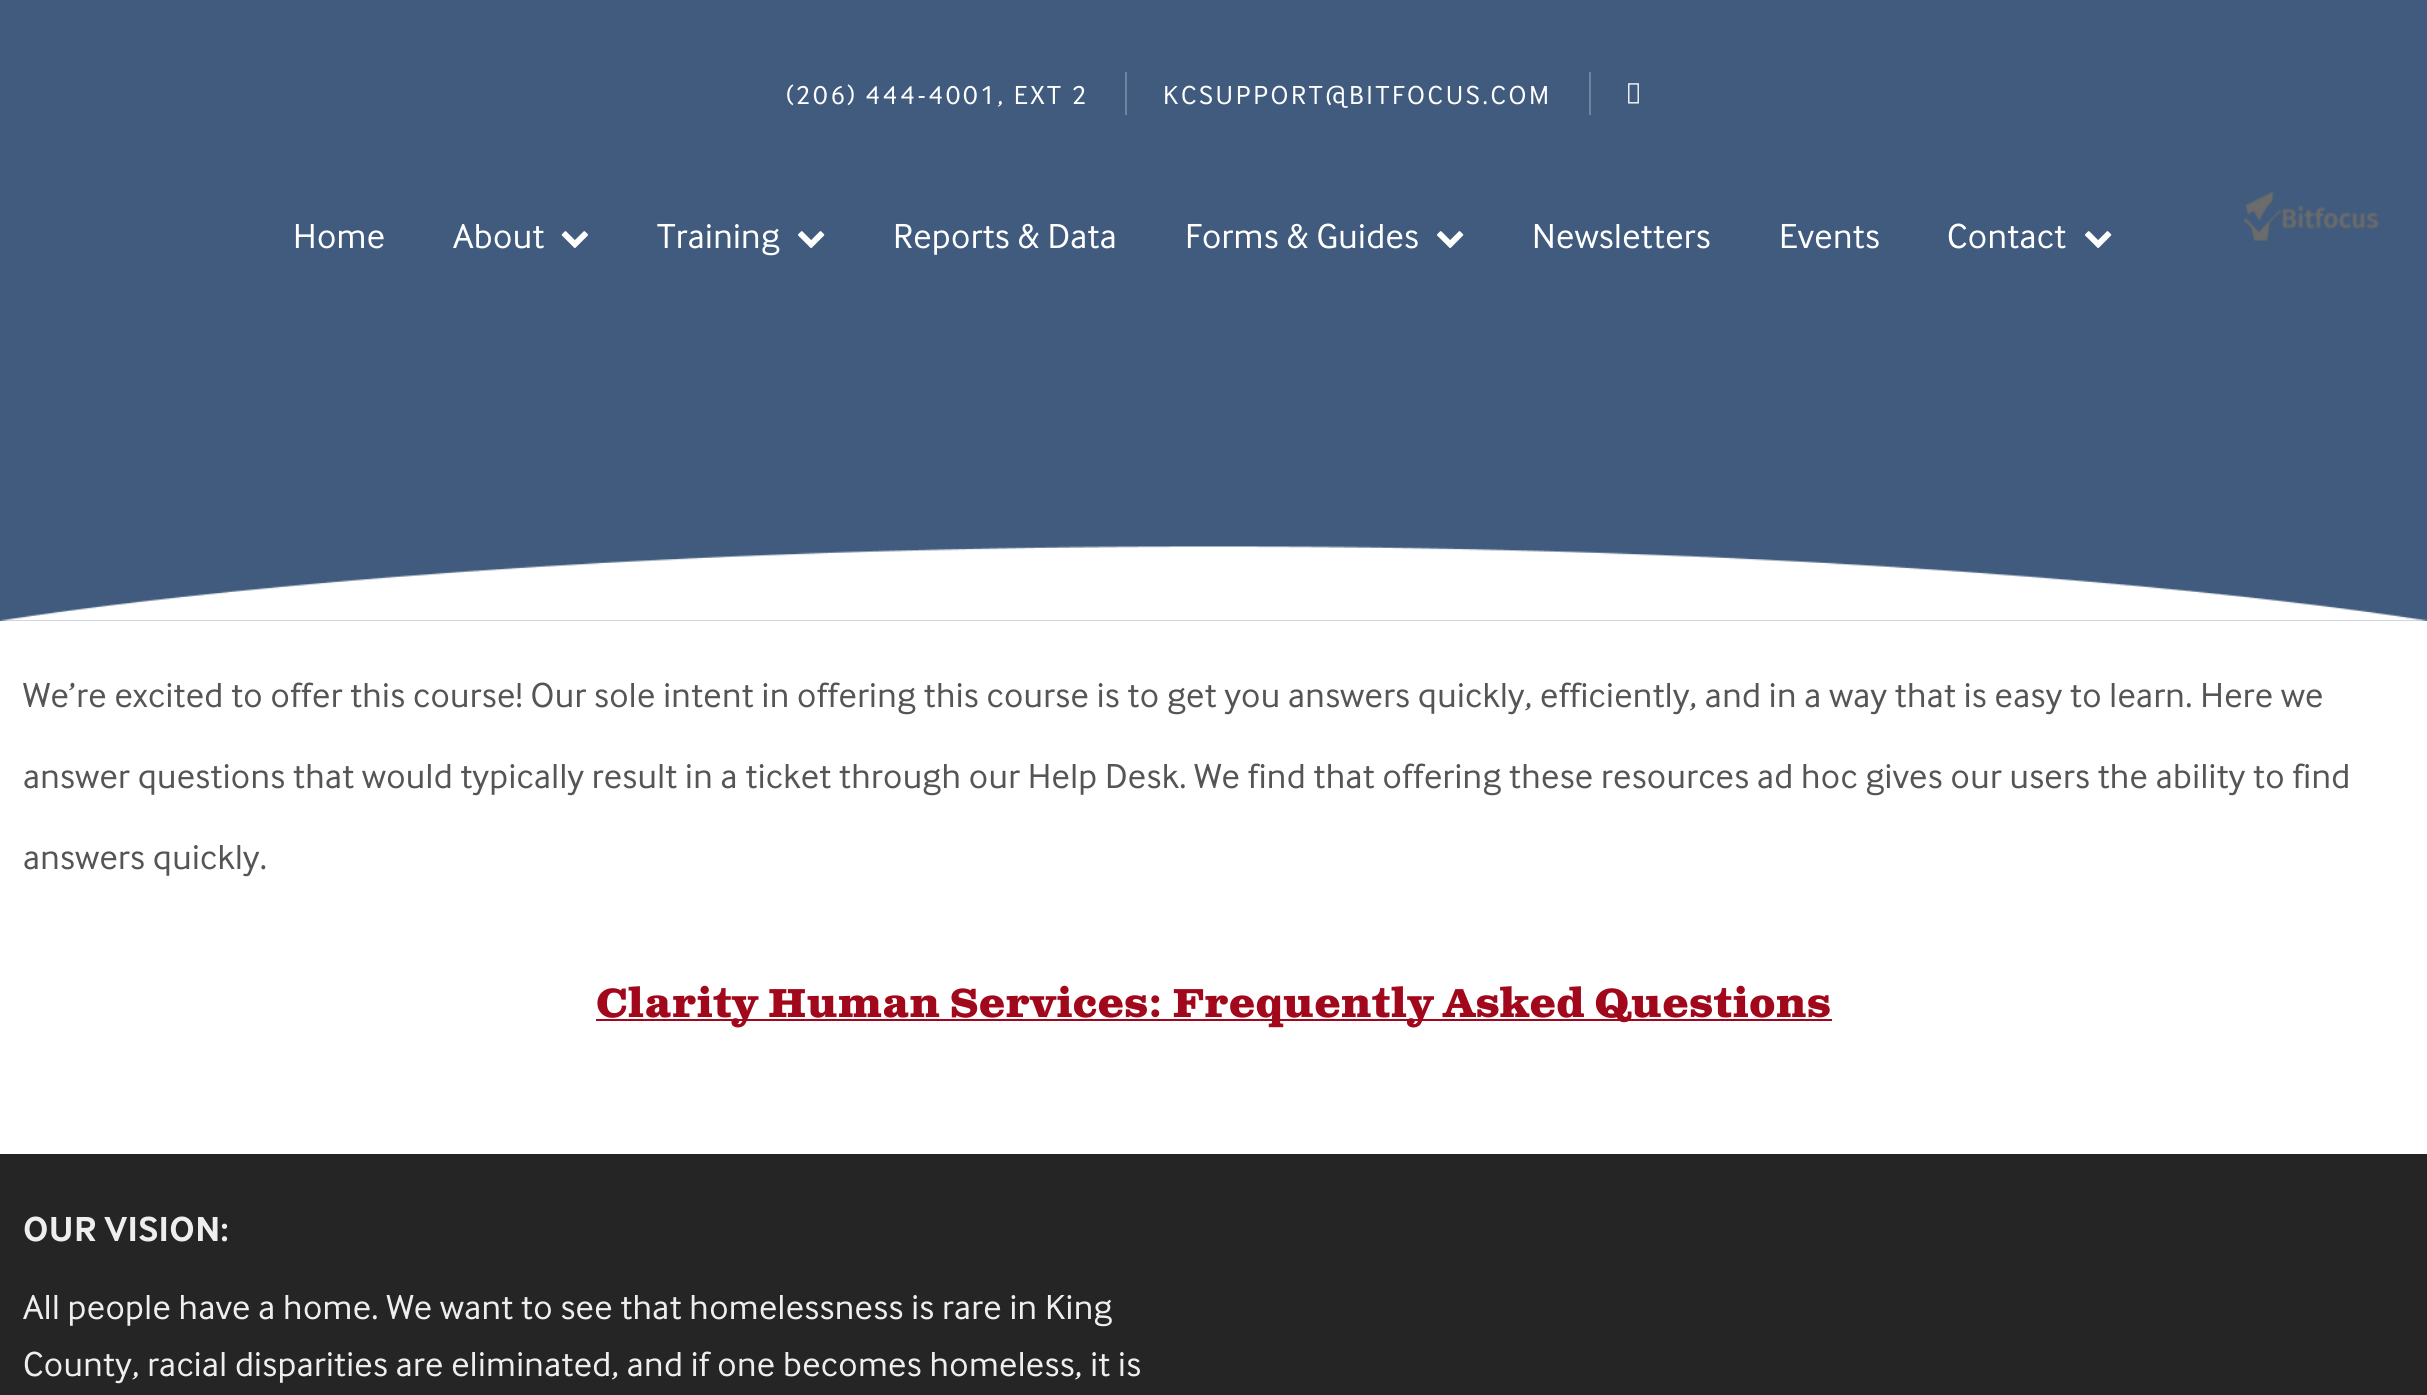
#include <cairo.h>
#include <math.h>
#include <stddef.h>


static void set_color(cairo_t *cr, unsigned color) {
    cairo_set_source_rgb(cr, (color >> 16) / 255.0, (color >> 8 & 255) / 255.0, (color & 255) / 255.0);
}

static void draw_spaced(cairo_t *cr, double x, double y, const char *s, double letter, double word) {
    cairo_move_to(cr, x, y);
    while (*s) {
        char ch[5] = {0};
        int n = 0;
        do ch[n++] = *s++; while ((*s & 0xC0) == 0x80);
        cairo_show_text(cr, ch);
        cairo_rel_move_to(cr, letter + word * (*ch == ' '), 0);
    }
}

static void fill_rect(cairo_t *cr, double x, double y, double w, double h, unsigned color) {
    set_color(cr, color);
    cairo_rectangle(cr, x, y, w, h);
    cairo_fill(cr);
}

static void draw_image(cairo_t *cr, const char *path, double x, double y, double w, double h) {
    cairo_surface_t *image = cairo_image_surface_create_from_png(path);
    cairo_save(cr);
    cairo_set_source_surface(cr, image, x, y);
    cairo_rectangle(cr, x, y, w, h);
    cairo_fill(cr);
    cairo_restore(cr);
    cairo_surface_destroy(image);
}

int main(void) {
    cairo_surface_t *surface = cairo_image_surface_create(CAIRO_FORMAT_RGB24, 2427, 1395);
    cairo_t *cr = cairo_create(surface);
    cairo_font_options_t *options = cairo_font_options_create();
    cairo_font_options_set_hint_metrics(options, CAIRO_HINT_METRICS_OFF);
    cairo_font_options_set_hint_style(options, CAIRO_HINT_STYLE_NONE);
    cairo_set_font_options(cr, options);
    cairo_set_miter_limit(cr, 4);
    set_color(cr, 0xFFFFFF);
    cairo_paint(cr);
    fill_rect(cr, 0, 0, 2427, 621, 0x405B7D);
    fill_rect(cr, 1125, 72, 2, 43, 0x70849E);
    cairo_select_font_face(cr, "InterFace", CAIRO_FONT_SLANT_NORMAL, CAIRO_FONT_WEIGHT_NORMAL);
    cairo_set_font_size(cr, 27);
    set_color(cr, 0xFFFFFF);
    draw_spaced(cr, 786, 104, "(206) 444-4001, EXT 2", 2.7, 0);
    fill_rect(cr, 1589, 72, 2, 43, 0x70849E);
    set_color(cr, 0xFFFFFF);
    draw_spaced(cr, 1163, 104, "KCSUPPORT@BITFOCUS.COM", 2.7, 0);
    draw_image(cr, "assets/img1.png", 1628, 83, 11, 21);
    cairo_set_font_size(cr, 36);
    draw_spaced(cr, 293, 248, "Home", 0.36, 0);
    draw_spaced(cr, 453, 248, "About", 0.36, 0);
    draw_image(cr, "assets/img2.png", 561, 231, 27, 17);
    draw_spaced(cr, 657, 248, "Training", 0.36, 0);
    draw_image(cr, "assets/img3.png", 798, 231, 27, 17);
    draw_spaced(cr, 893, 248, "Reports & Data", 0.36, 0);
    draw_spaced(cr, 1185, 248, "Forms & Guides", 0.36, 0);
    draw_image(cr, "assets/img3.png", 1437, 231, 27, 17);
    draw_spaced(cr, 1532, 248, "Newsletters", 0.36, 0);
    draw_spaced(cr, 1779, 248, "Events", 0.36, 0);
    draw_spaced(cr, 1947, 248, "Contact", 0.36, 0);
    draw_image(cr, "assets/img3.png", 2085, 231, 27, 17);
    draw_image(cr, "assets/img4.png", 2243, 191, 136, 50);
    draw_image(cr, "assets/img5.png", 0, 546, 2427, 75);
    set_color(cr, 0x555555);
    draw_spaced(cr, 23, 707, "We’re excited to offer this course! Our sole intent in offering this course is to get you answers quickly, efficiently, and in a way that is easy to learn. Here we", 0.36, 0);
    draw_spaced(cr, 23, 788, "answer questions that would typically result in a ticket through our Help Desk. We find that offering these resources ad hoc gives our users the ability to find", 0.36, 0);
    draw_spaced(cr, 23, 869, "answers quickly.", 0.36, 0);
    fill_rect(cr, 596, 1019, 1236, 2, 0xA2081B);
    cairo_select_font_face(cr, "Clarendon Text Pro", CAIRO_FONT_SLANT_NORMAL, CAIRO_FONT_WEIGHT_BOLD);
    cairo_set_font_size(cr, 40.5);
    draw_spaced(cr, 596, 1017, "Clarity Human Services: Frequently Asked Questions", 0.36, 0);
    fill_rect(cr, 0, 1154, 2427, 241, 0x252525);
    cairo_select_font_face(cr, "InterFace", CAIRO_FONT_SLANT_NORMAL, CAIRO_FONT_WEIGHT_BOLD);
    cairo_set_font_size(cr, 36);
    set_color(cr, 0xEEEEEE);
    draw_spaced(cr, 23, 1241, "OUR VISION:", 0.36, 0);
    cairo_select_font_face(cr, "InterFace", CAIRO_FONT_SLANT_NORMAL, CAIRO_FONT_WEIGHT_NORMAL);
    draw_spaced(cr, 23, 1319, "All people have a home. We want to see that homelessness is rare in King", 0.36, 0);
    draw_spaced(cr, 23, 1376, "County, racial disparities are eliminated, and if one becomes homeless, it is", 0.36, 0);
    cairo_surface_write_to_png(surface, "output.png");
    cairo_font_options_destroy(options);
    cairo_destroy(cr);
    cairo_surface_destroy(surface);
    return 0;
}
